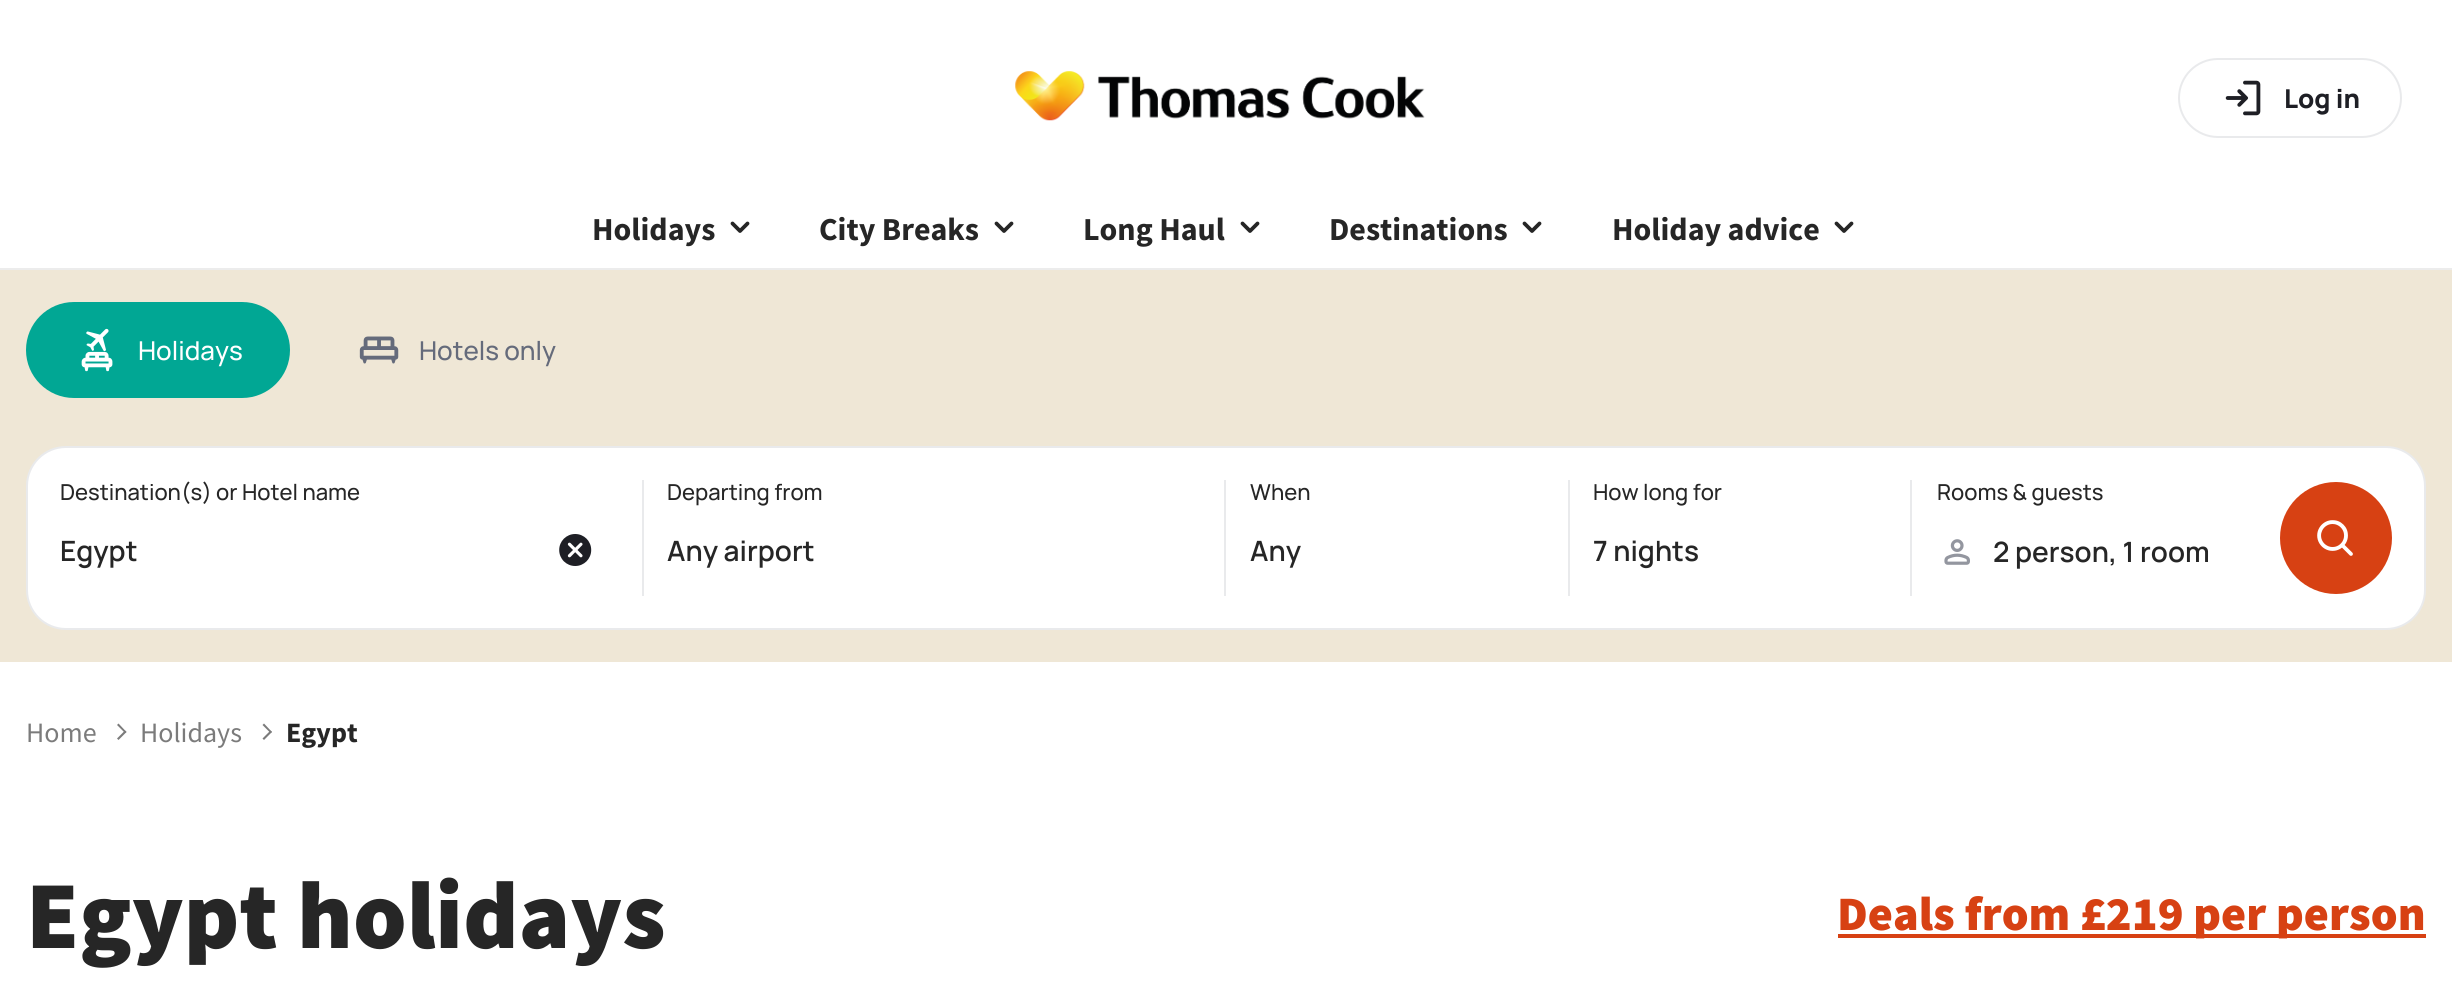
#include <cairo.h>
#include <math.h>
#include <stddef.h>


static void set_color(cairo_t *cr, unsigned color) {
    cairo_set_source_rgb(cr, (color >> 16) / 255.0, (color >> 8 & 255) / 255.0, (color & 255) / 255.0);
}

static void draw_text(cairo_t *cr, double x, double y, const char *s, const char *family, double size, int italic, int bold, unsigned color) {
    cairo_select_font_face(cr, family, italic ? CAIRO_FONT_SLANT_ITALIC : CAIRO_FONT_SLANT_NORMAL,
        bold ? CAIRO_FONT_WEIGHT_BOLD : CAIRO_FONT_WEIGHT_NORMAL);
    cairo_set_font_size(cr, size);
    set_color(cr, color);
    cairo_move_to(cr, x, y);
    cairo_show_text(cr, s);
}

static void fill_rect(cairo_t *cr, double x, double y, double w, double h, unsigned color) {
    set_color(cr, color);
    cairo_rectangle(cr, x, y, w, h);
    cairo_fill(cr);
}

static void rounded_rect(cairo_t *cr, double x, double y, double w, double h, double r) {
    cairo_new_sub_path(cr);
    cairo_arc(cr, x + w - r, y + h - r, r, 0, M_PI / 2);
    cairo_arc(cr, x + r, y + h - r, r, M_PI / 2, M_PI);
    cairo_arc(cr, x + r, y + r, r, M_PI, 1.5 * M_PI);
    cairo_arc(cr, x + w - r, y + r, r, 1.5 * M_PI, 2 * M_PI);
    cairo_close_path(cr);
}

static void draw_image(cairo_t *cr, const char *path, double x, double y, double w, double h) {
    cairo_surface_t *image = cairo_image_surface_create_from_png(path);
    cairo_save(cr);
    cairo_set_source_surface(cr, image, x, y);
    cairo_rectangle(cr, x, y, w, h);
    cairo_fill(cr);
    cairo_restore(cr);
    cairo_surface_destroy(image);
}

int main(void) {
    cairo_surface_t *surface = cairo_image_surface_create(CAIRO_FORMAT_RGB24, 2452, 990);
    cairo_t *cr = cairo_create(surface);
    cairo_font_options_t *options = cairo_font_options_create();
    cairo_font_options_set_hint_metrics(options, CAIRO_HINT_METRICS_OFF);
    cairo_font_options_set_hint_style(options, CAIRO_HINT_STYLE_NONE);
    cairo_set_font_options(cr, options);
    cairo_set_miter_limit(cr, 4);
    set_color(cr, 0xFFFFFF);
    cairo_paint(cr);
    draw_image(cr, "assets/img1.png", 1015, 71, 410, 50);
    rounded_rect(cr, 2179, 59, 222, 78, 39);
    set_color(cr, 0xE9EAEC);
    cairo_stroke(cr);
    draw_image(cr, "assets/img2.png", 2225, 80, 36, 36);
    draw_text(cr, 2284, 108, "Log in", "Manrope ExtraBold", 26, 0, 0, 0x1E1F25);
    fill_rect(cr, 0, 268, 2452, 2, 0xECECEC);
    draw_text(cr, 592, 240, "Holidays", "Source Sans Pro", 32, 0, 1, 0x262626);
    cairo_new_path(cr);
    cairo_move_to(cr, 732.5, 223.5);
    cairo_line_to(cr, 740, 231);
    cairo_line_to(cr, 747.5, 223.5);
    cairo_set_line_width(cr, 3.8);
    cairo_set_line_cap(cr, CAIRO_LINE_CAP_ROUND);
    cairo_set_line_join(cr, CAIRO_LINE_JOIN_ROUND);
    cairo_stroke(cr);
    draw_text(cr, 819, 240, "City Breaks", "Source Sans Pro", 32, 0, 1, 0x262626);
    cairo_new_path(cr);
    cairo_move_to(cr, 996.5, 223.5);
    cairo_line_to(cr, 1004, 231);
    cairo_line_to(cr, 1011.5, 223.5);
    cairo_stroke(cr);
    draw_text(cr, 1083, 240, "Long Haul", "Source Sans Pro", 32, 0, 1, 0x262626);
    cairo_new_path(cr);
    cairo_move_to(cr, 1242.5, 223.5);
    cairo_line_to(cr, 1250, 231);
    cairo_line_to(cr, 1257.5, 223.5);
    cairo_stroke(cr);
    draw_text(cr, 1329, 240, "Destinations", "Source Sans Pro", 32, 0, 1, 0x262626);
    cairo_new_path(cr);
    cairo_move_to(cr, 1524.5, 223.5);
    cairo_line_to(cr, 1532, 231);
    cairo_line_to(cr, 1539.5, 223.5);
    cairo_stroke(cr);
    draw_text(cr, 1612, 240, "Holiday advice", "Source Sans Pro", 32, 0, 1, 0x262626);
    cairo_new_path(cr);
    cairo_move_to(cr, 1836.5, 223.5);
    cairo_line_to(cr, 1844, 231);
    cairo_line_to(cr, 1851.5, 223.5);
    cairo_stroke(cr);
    fill_rect(cr, 0, 270, 2452, 392, 0xEFE7D6);
    set_color(cr, 0x01A794);
    rounded_rect(cr, 26, 302, 264, 96, 48);
    cairo_fill(cr);
    draw_image(cr, "assets/img3.png", 81, 328, 32, 44);
    draw_text(cr, 138, 360, "Holidays", "Manrope Medium", 26, 0, 0, 0xFFFFFF);
    draw_image(cr, "assets/img4.png", 359, 336, 40, 28);
    draw_text(cr, 419, 360, "Hotels only", "Manrope Medium", 26, 0, 0, 0x656B7B);
    set_color(cr, 0xFFFFFF);
    rounded_rect(cr, 27, 447, 2398, 182, 39);
    cairo_fill_preserve(cr);
    set_color(cr, 0xE9EAEC);
    cairo_set_line_width(cr, 2);
    cairo_set_line_cap(cr, CAIRO_LINE_CAP_BUTT);
    cairo_set_line_join(cr, CAIRO_LINE_JOIN_MITER);
    cairo_stroke(cr);
    fill_rect(cr, 642, 480, 2, 116, 0xE9EAEC);
    draw_text(cr, 60, 500, "Destination(s) or Hotel name", "Manrope Medium", 22, 0, 0, 0x262626);
    draw_text(cr, 60, 561, "Egypt", "Manrope SemiBold", 28, 0, 0, 0x262626);
    draw_image(cr, "assets/img5.png", 559, 534, 33, 32);
    fill_rect(cr, 1224, 480, 2, 116, 0xE9EAEC);
    draw_text(cr, 667, 500, "Departing from", "Manrope Medium", 22, 0, 0, 0x262626);
    draw_text(cr, 667, 561, "Any airport", "Manrope SemiBold", 28, 0, 0, 0x262626);
    fill_rect(cr, 1910, 480, 2, 116, 0xE9EAEC);
    draw_text(cr, 1250, 500, "When", "Manrope Medium", 22, 0, 0, 0x262626);
    draw_text(cr, 1250, 561, "Any", "Manrope SemiBold", 28, 0, 0, 0x262626);
    fill_rect(cr, 1568, 480, 2, 116, 0xE9EAEC);
    draw_text(cr, 1593, 500, "How long for", "Manrope Medium", 22, 0, 0, 0x262626);
    draw_text(cr, 1593, 561, "7 nights", "Manrope SemiBold", 28, 0, 0, 0x262626);
    draw_text(cr, 1937, 500, "Rooms & guests", "Manrope Medium", 22, 0, 0, 0x262626);
    draw_image(cr, "assets/img6.png", 1944, 539, 26, 26);
    draw_text(cr, 1993, 562, "2 person, 1 room", "Manrope SemiBold", 28, 0, 0, 0x262626);
    set_color(cr, 0xD74113);
    cairo_new_path(cr);
    cairo_arc(cr, 2336, 538, 56, 0, 2 * M_PI);
    cairo_fill(cr);
    draw_image(cr, "assets/img7.png", 2317, 520, 36, 36);
    draw_text(cr, 26, 742, "Home", "Source Sans Pro", 28, 0, 0, 0x7B7B7B);
    cairo_new_path(cr);
    cairo_move_to(cr, 117, 725);
    cairo_line_to(cr, 118.5, 723.5);
    cairo_line_to(cr, 126.5, 732);
    cairo_line_to(cr, 125, 733);
    cairo_close_path(cr);
    cairo_fill(cr);
    cairo_new_path(cr);
    cairo_move_to(cr, 117, 738.5);
    cairo_line_to(cr, 125, 730.5);
    cairo_line_to(cr, 126.5, 732);
    cairo_line_to(cr, 118.5, 740);
    cairo_close_path(cr);
    cairo_fill(cr);
    draw_text(cr, 140, 742, "Holidays", "Source Sans Pro", 28, 0, 0, 0x7B7B7B);
    cairo_new_path(cr);
    cairo_move_to(cr, 262.5, 725);
    cairo_line_to(cr, 264, 723.5);
    cairo_line_to(cr, 272, 732);
    cairo_line_to(cr, 270.5, 733);
    cairo_close_path(cr);
    cairo_fill(cr);
    cairo_new_path(cr);
    cairo_move_to(cr, 262.5, 738.5);
    cairo_line_to(cr, 270.5, 730.5);
    cairo_line_to(cr, 272, 732);
    cairo_line_to(cr, 264, 740);
    cairo_close_path(cr);
    cairo_fill(cr);
    draw_text(cr, 286, 742, "Egypt", "Source Sans Pro", 28, 0, 1, 0x262626);
    draw_text(cr, 26, 948, "Egypt holidays", "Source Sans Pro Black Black", 96, 0, 0, 0x262626);
    fill_rect(cr, 1838, 934, 588, 4, 0xD74113);
    draw_text(cr, 1837, 930, "Deals from £219 per person", "Source Sans Pro Black Black", 48, 0, 0, 0xD74113);
    cairo_surface_write_to_png(surface, "output.png");
    cairo_font_options_destroy(options);
    cairo_destroy(cr);
    cairo_surface_destroy(surface);
    return 0;
}
